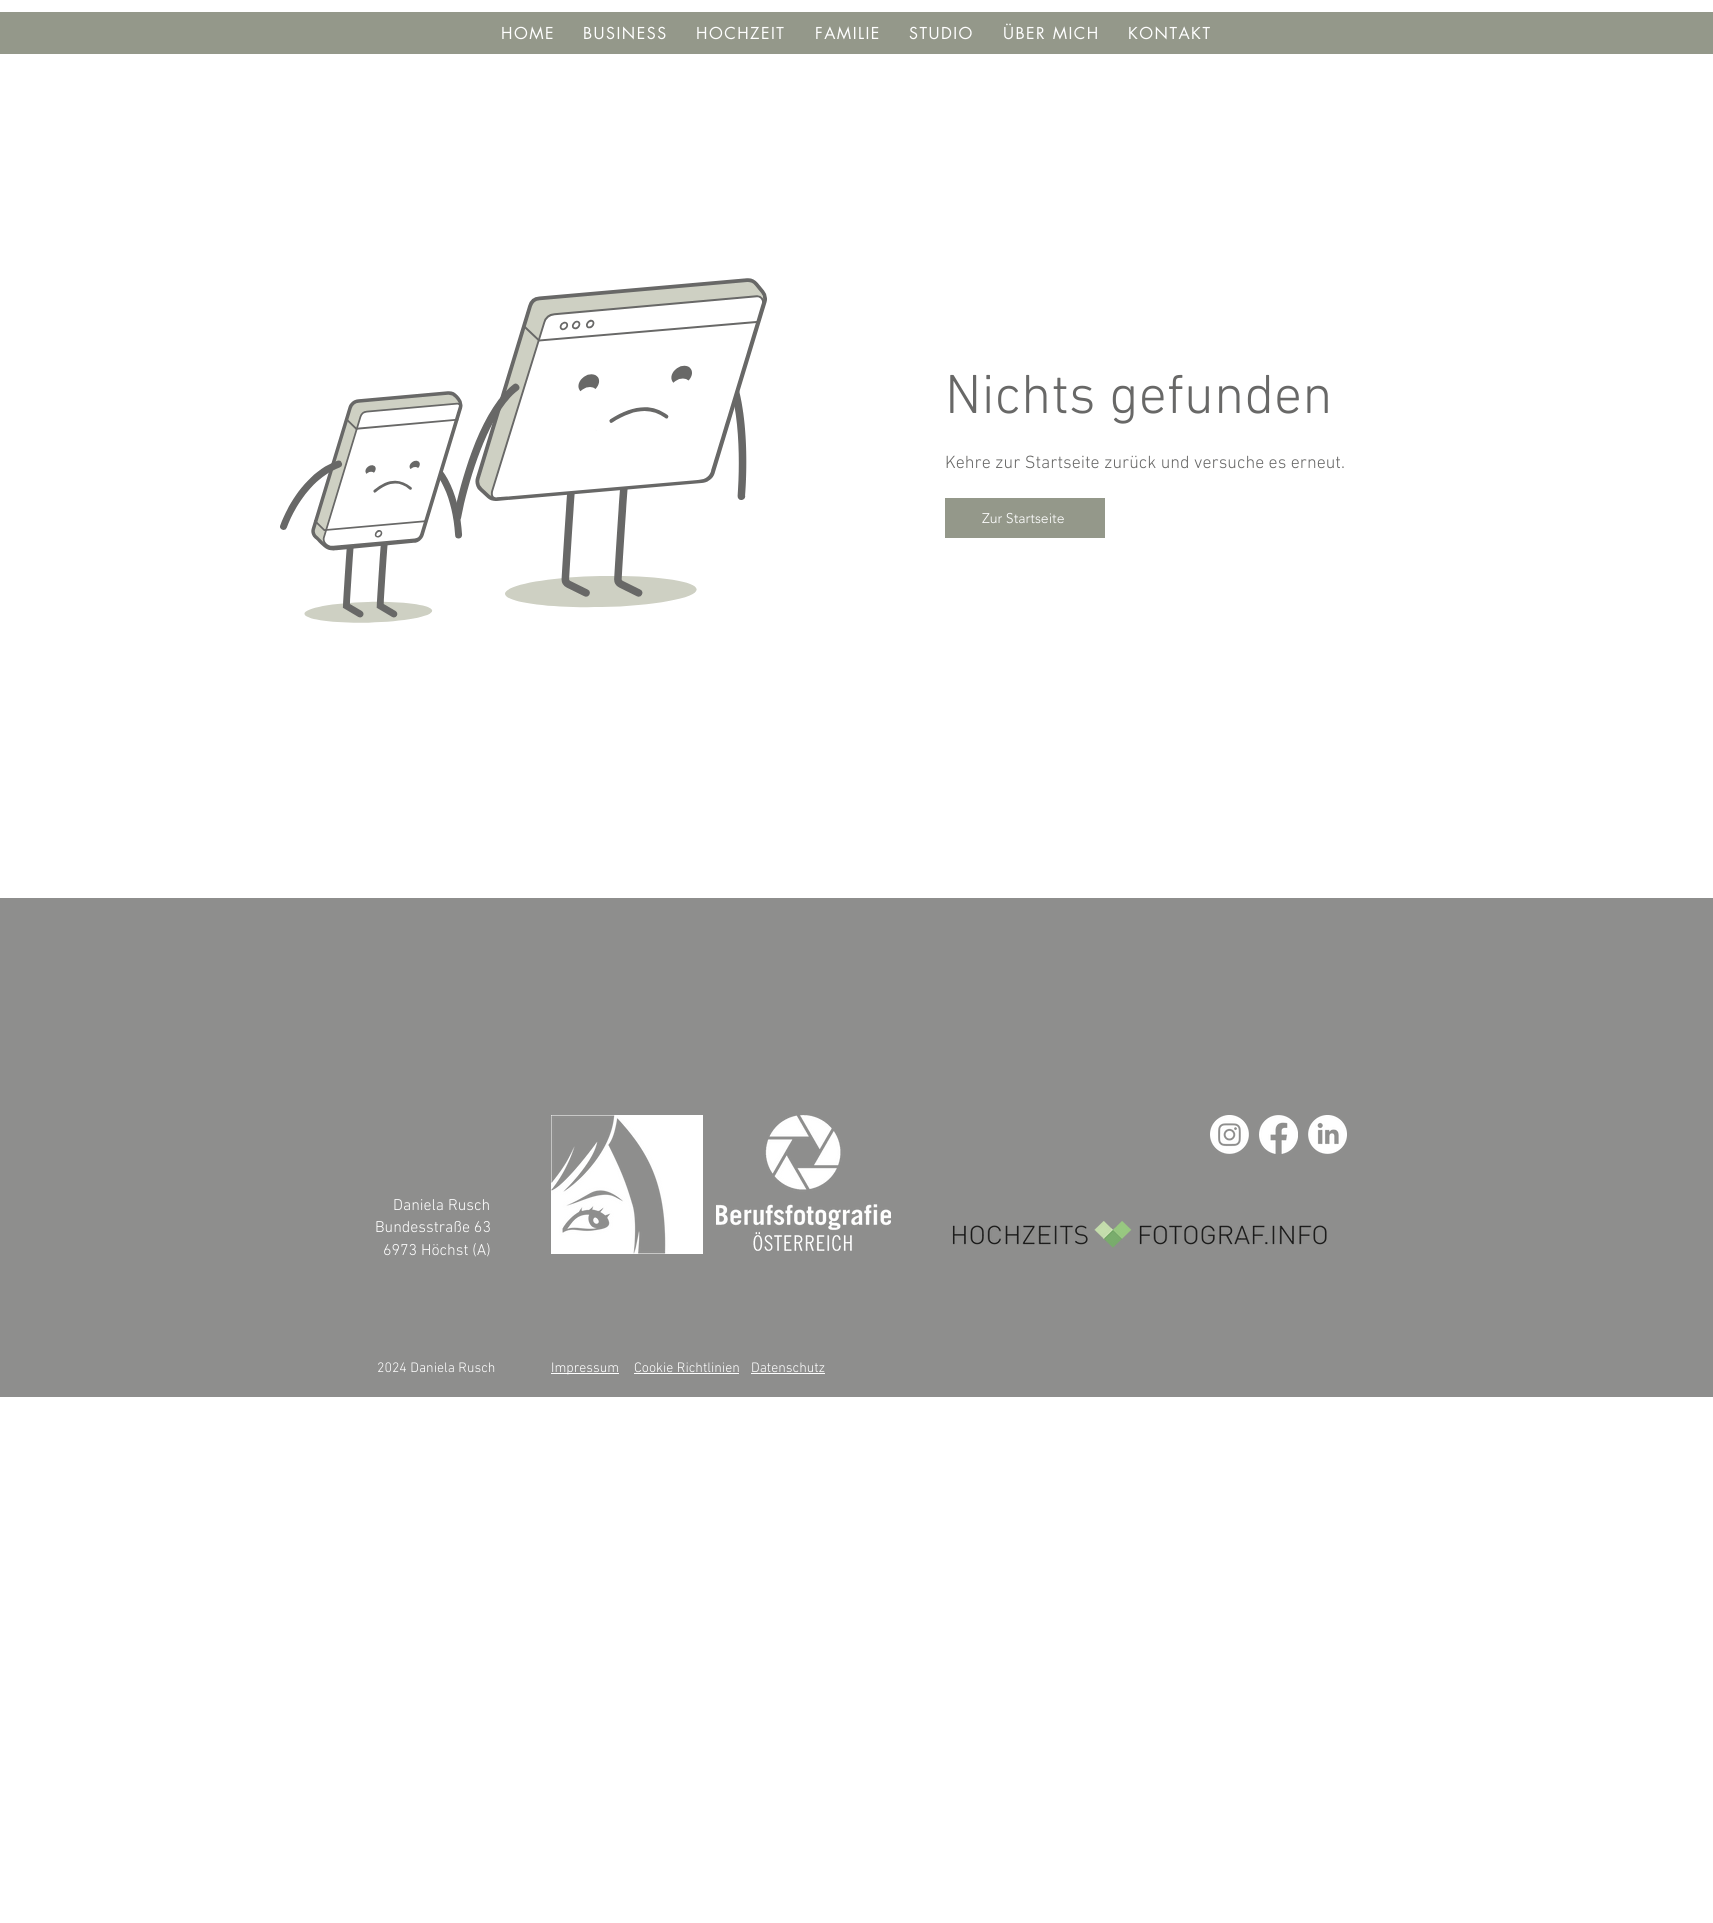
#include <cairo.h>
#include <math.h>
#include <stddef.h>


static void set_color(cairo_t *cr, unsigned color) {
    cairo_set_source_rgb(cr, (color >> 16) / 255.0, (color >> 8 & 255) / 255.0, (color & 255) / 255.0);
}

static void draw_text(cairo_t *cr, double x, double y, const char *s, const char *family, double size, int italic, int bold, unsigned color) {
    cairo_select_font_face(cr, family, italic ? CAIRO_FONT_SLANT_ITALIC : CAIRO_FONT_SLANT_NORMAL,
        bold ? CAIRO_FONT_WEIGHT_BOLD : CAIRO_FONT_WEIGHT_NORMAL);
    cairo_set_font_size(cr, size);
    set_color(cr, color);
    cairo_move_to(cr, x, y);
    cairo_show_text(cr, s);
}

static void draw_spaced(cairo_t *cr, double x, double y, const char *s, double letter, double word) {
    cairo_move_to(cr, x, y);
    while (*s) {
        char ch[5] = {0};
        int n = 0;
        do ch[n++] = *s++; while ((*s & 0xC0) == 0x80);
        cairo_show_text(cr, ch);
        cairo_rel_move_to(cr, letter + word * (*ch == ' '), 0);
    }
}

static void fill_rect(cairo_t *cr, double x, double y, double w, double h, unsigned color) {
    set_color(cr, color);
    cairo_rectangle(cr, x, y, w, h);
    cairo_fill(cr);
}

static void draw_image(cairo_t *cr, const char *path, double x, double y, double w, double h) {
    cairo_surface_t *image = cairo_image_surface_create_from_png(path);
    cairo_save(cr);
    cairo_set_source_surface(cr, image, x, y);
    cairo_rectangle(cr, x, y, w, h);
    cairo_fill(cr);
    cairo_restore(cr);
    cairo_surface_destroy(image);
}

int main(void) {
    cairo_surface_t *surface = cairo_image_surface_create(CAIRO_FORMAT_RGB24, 1713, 1923);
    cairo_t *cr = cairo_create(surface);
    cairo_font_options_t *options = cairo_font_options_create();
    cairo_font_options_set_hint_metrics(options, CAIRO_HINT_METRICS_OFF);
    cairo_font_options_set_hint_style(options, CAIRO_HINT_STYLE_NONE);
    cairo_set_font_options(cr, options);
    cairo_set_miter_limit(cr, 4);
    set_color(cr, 0xFFFFFF);
    cairo_paint(cr);
    fill_rect(cr, 0, 12, 1713, 42, 0x94988A);
    cairo_select_font_face(cr, "futura", CAIRO_FONT_SLANT_NORMAL, CAIRO_FONT_WEIGHT_NORMAL);
    cairo_set_font_size(cr, 16);
    set_color(cr, 0xFFFFFF);
    draw_spaced(cr, 501, 39, "HOME", 1.5, 0);
    draw_spaced(cr, 583, 39, "BUSINESS", 1.5, 0);
    draw_spaced(cr, 696, 39, "HOCHZEIT", 1.5, 0);
    draw_spaced(cr, 815, 39, "FAMILIE", 1.5, 0);
    draw_spaced(cr, 909, 39, "STUDIO", 1.5, 0);
    draw_spaced(cr, 1003, 39, "ÜBER MICH", 1.5, 0);
    draw_spaced(cr, 1128, 39, "KONTAKT", 1.5, 0);
    draw_image(cr, "assets/img1.png", 280, 278, 487, 345);
    draw_text(cr, 945, 413, "Nichts gefunden", "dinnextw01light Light", 56, 0, 0, 0x686867);
    draw_text(cr, 945, 468, "Kehre zur Startseite zurück und versuche es erneut.", "dinnextw01light Light", 18, 0, 0, 0x686867);
    fill_rect(cr, 945, 498, 160, 40, 0x94988A);
    draw_text(cr, 982, 523, "Zur Startseite", "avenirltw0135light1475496 Light", 14, 0, 0, 0xFFFFFF);
    fill_rect(cr, 0, 898, 1713, 499, 0x8E8E8D);
    draw_image(cr, "assets/img2.png", 551, 1115, 152, 139);
    draw_image(cr, "assets/img3.png", 716, 1115, 175, 136);
    draw_image(cr, "assets/img4.png", 1210, 1115, 39, 39);
    draw_image(cr, "assets/img5.png", 1259, 1115, 39, 39);
    draw_image(cr, "assets/img6.png", 1308, 1115, 39, 39);
    draw_text(cr, 393, 1210, "Daniela Rusch", "dinnextw01light Light", 16, 0, 0, 0xFFFFFF);
    draw_text(cr, 375, 1232, "Bundesstraße 63", "dinnextw01light Light", 16, 0, 0, 0xFFFFFF);
    draw_text(cr, 383, 1255, "6973 Höchst (A)", "dinnextw01light Light", 16, 0, 0, 0xFFFFFF);
    draw_image(cr, "assets/img7.png", 952, 1221, 375, 27);
    draw_text(cr, 377, 1372, "2024 Daniela Rusch", "dinnextw01light Light", 14, 0, 0, 0xFFFFFF);
    fill_rect(cr, 551, 1373, 68, 1, 0xFFFFFF);
    draw_text(cr, 551, 1372, "Impressum", "dinnextw01light Light", 14, 0, 0, 0xFFFFFF);
    draw_text(cr, 634, 1372, "Cookie Richtlinien", "dinnextw01light Light", 14, 0, 0, 0xFFFFFF);
    fill_rect(cr, 634, 1373, 105, 1, 0xFFFFFF);
    draw_text(cr, 751, 1372, "Datenschutz", "dinnextw01light Light", 14, 0, 0, 0xFFFFFF);
    fill_rect(cr, 751, 1373, 74, 1, 0xFFFFFF);
    cairo_surface_write_to_png(surface, "output.png");
    cairo_font_options_destroy(options);
    cairo_destroy(cr);
    cairo_surface_destroy(surface);
    return 0;
}
